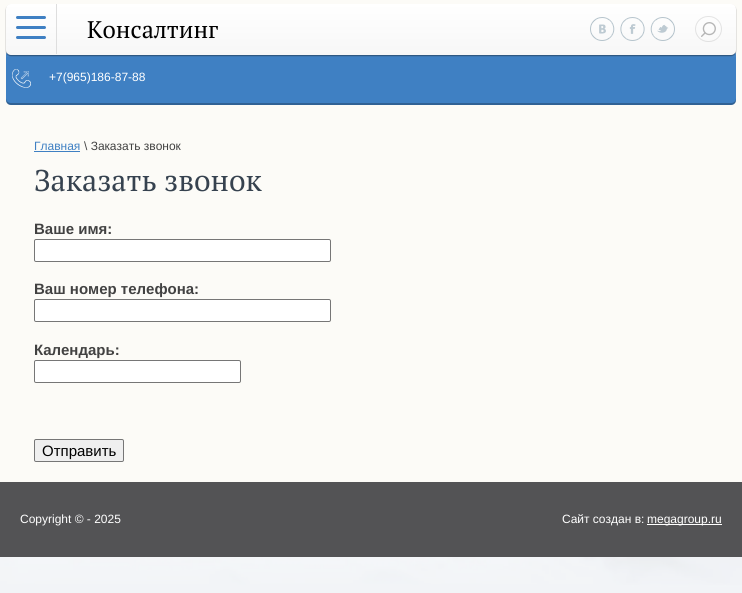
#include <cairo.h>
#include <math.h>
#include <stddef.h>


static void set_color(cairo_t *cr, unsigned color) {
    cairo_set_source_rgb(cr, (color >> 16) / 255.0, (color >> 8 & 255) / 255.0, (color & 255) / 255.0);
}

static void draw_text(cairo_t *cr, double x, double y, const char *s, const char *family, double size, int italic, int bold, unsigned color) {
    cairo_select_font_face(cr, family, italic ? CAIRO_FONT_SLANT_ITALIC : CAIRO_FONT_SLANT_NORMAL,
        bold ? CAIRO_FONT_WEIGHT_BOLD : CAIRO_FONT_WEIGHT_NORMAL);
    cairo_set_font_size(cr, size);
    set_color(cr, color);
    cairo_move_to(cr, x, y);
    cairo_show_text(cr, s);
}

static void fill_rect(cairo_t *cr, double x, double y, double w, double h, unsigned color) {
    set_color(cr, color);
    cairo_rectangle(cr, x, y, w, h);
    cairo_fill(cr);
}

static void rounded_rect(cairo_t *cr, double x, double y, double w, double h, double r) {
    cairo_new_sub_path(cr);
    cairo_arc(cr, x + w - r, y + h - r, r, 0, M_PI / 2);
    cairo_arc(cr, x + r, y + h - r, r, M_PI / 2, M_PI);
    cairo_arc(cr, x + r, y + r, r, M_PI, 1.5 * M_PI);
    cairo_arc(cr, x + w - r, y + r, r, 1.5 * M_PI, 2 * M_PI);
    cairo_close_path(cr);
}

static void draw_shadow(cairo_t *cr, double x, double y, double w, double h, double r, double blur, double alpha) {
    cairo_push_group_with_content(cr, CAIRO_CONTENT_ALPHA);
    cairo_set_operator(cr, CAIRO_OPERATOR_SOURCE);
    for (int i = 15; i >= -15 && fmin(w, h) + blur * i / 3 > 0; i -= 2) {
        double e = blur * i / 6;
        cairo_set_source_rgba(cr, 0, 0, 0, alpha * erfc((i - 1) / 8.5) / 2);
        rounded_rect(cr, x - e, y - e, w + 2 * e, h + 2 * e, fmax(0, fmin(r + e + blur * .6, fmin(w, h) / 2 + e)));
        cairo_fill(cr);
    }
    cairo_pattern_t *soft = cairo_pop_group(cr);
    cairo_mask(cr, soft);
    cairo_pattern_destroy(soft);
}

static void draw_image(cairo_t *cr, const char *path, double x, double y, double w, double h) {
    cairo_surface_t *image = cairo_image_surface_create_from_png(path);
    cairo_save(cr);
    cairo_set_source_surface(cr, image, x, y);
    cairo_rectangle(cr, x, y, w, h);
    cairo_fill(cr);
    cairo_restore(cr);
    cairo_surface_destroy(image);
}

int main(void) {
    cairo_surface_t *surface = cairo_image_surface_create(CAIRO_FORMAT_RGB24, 742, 593);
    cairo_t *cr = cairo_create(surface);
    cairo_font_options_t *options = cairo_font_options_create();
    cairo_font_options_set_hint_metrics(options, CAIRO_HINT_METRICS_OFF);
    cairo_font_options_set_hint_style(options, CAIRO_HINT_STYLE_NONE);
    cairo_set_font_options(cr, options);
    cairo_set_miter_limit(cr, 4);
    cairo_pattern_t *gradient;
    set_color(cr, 0xFFFFFF);
    cairo_paint(cr);
    draw_image(cr, "assets/img1.png", 0, 557, 742, 36);
    fill_rect(cr, 0, 0, 742, 482, 0xFCFBF7);
    set_color(cr, 0x3F80C3);
    rounded_rect(cr, 6, 50, 730, 55, 5);
    cairo_fill(cr);
    gradient = cairo_pattern_create_linear(371, 105, 371, 50);
    cairo_pattern_add_color_stop_rgba(gradient, 0, 0, 0, 0, 0);
    cairo_pattern_add_color_stop_rgba(gradient, 0.56, 1, 1, 1, 0);
    cairo_pattern_add_color_stop_rgba(gradient, 1, 1, 1, 1, 0.03);
    cairo_set_source(cr, gradient);
    cairo_pattern_destroy(gradient);
    cairo_rectangle(cr, 6, 53, 730, 4);
    cairo_fill(cr);
    set_color(cr, 0x000000);
    draw_shadow(cr, 6, 5, 730, 51, 5, 0.5, 0.38);
    gradient = cairo_pattern_create_linear(371, 4, 371, 55);
    cairo_pattern_add_color_stop_rgba(gradient, 0, 1, 1, 1, 1);
    cairo_pattern_add_color_stop_rgba(gradient, 1, 0.969, 0.969, 0.969, 1);
    cairo_set_source(cr, gradient);
    cairo_pattern_destroy(gradient);
    rounded_rect(cr, 6, 4, 730, 51, 5);
    cairo_fill(cr);
    draw_image(cr, "assets/img2.png", 16, 16, 30, 23);
    fill_rect(cr, 56, 4, 1, 50, 0xDEDEDE);
    draw_text(cr, 87, 38, "Консалтинг", "PT Serif", 24, 0, 0, 0x000000);
    draw_image(cr, "assets/img3.png", 590, 17, 25, 24);
    draw_image(cr, "assets/img4.png", 620, 17, 25, 24);
    draw_image(cr, "assets/img5.png", 650, 17, 25, 24);
    draw_image(cr, "assets/img6.png", 701, 22, 15, 15);
    rounded_rect(cr, 695.5, 16.5, 26, 25, 12.5);
    cairo_set_source_rgba(cr, 0, 0, 0, 0.1);
    cairo_set_line_width(cr, 1);
    cairo_stroke(cr);
    cairo_set_source_rgba(cr, 0, 0, 0, 0.24);
    cairo_new_path(cr);
    cairo_move_to(cr, 6, 98);
    cairo_line_to(cr, 6, 100);
    cairo_curve_to(cr, 6, 103, 8, 105, 11, 105);
    cairo_line_to(cr, 731, 105);
    cairo_curve_to(cr, 734, 105, 736, 103, 736, 100);
    cairo_line_to(cr, 736, 98);
    cairo_curve_to(cr, 736, 101, 734, 103, 731, 103);
    cairo_line_to(cr, 11, 103);
    cairo_curve_to(cr, 8, 103, 6, 101, 6, 98);
    cairo_close_path(cr);
    cairo_fill(cr);
    draw_image(cr, "assets/img7.png", 12, 69, 19, 19);
    draw_text(cr, 49, 81, "+7(965)186-87-88", "Liberation Sans", 12, 0, 0, 0xFFFFFF);
    draw_text(cr, 34, 150, "Главная", "Liberation Sans", 12, 0, 0, 0x3F80C3);
    fill_rect(cr, 34, 151, 46, 1, 0x3F80C3);
    draw_text(cr, 84, 150, "\\ Заказать звонок", "Liberation Sans", 12, 0, 0, 0x424242);
    draw_text(cr, 34, 191, "Заказать звонок", "PT Serif", 30, 0, 0, 0x36424F);
    draw_text(cr, 34, 234, "Ваше имя:", "Liberation Sans", 15, 0, 1, 0x424242);
    set_color(cr, 0xFFFFFF);
    rounded_rect(cr, 34.5, 239.5, 296, 22, 1.5);
    cairo_fill_preserve(cr);
    set_color(cr, 0x767676);
    cairo_stroke(cr);
    draw_text(cr, 34, 294, "Ваш номер телефона:", "Liberation Sans", 15, 0, 1, 0x424242);
    set_color(cr, 0xFFFFFF);
    rounded_rect(cr, 34.5, 299.5, 296, 22, 1.5);
    cairo_fill_preserve(cr);
    set_color(cr, 0x767676);
    cairo_stroke(cr);
    draw_text(cr, 34, 355, "Календарь:", "Liberation Sans", 15, 0, 1, 0x424242);
    set_color(cr, 0xFFFFFF);
    rounded_rect(cr, 34.5, 360.5, 206, 22, 1.5);
    cairo_fill_preserve(cr);
    set_color(cr, 0x767676);
    cairo_stroke(cr);
    set_color(cr, 0xEFEFEF);
    rounded_rect(cr, 34.5, 439.5, 89, 22, 1.5);
    cairo_fill_preserve(cr);
    set_color(cr, 0x767676);
    cairo_stroke(cr);
    draw_text(cr, 42, 456, "Отправить", "Liberation Sans", 15, 0, 0, 0x000000);
    fill_rect(cr, 0, 482, 742, 75, 0x535355);
    draw_text(cr, 20, 523, "Copyright © - 2025", "Liberation Sans", 12, 0, 0, 0xFFFFFF);
    draw_text(cr, 562, 523, "Сайт создан в:", "Liberation Sans", 12, 0, 0, 0xFFFFFF);
    fill_rect(cr, 647, 524, 75, 1, 0xFFFFFF);
    draw_text(cr, 647, 523, "megagroup.ru", "Liberation Sans", 12, 0, 0, 0xFFFFFF);
    cairo_surface_write_to_png(surface, "output.png");
    cairo_font_options_destroy(options);
    cairo_destroy(cr);
    cairo_surface_destroy(surface);
    return 0;
}
